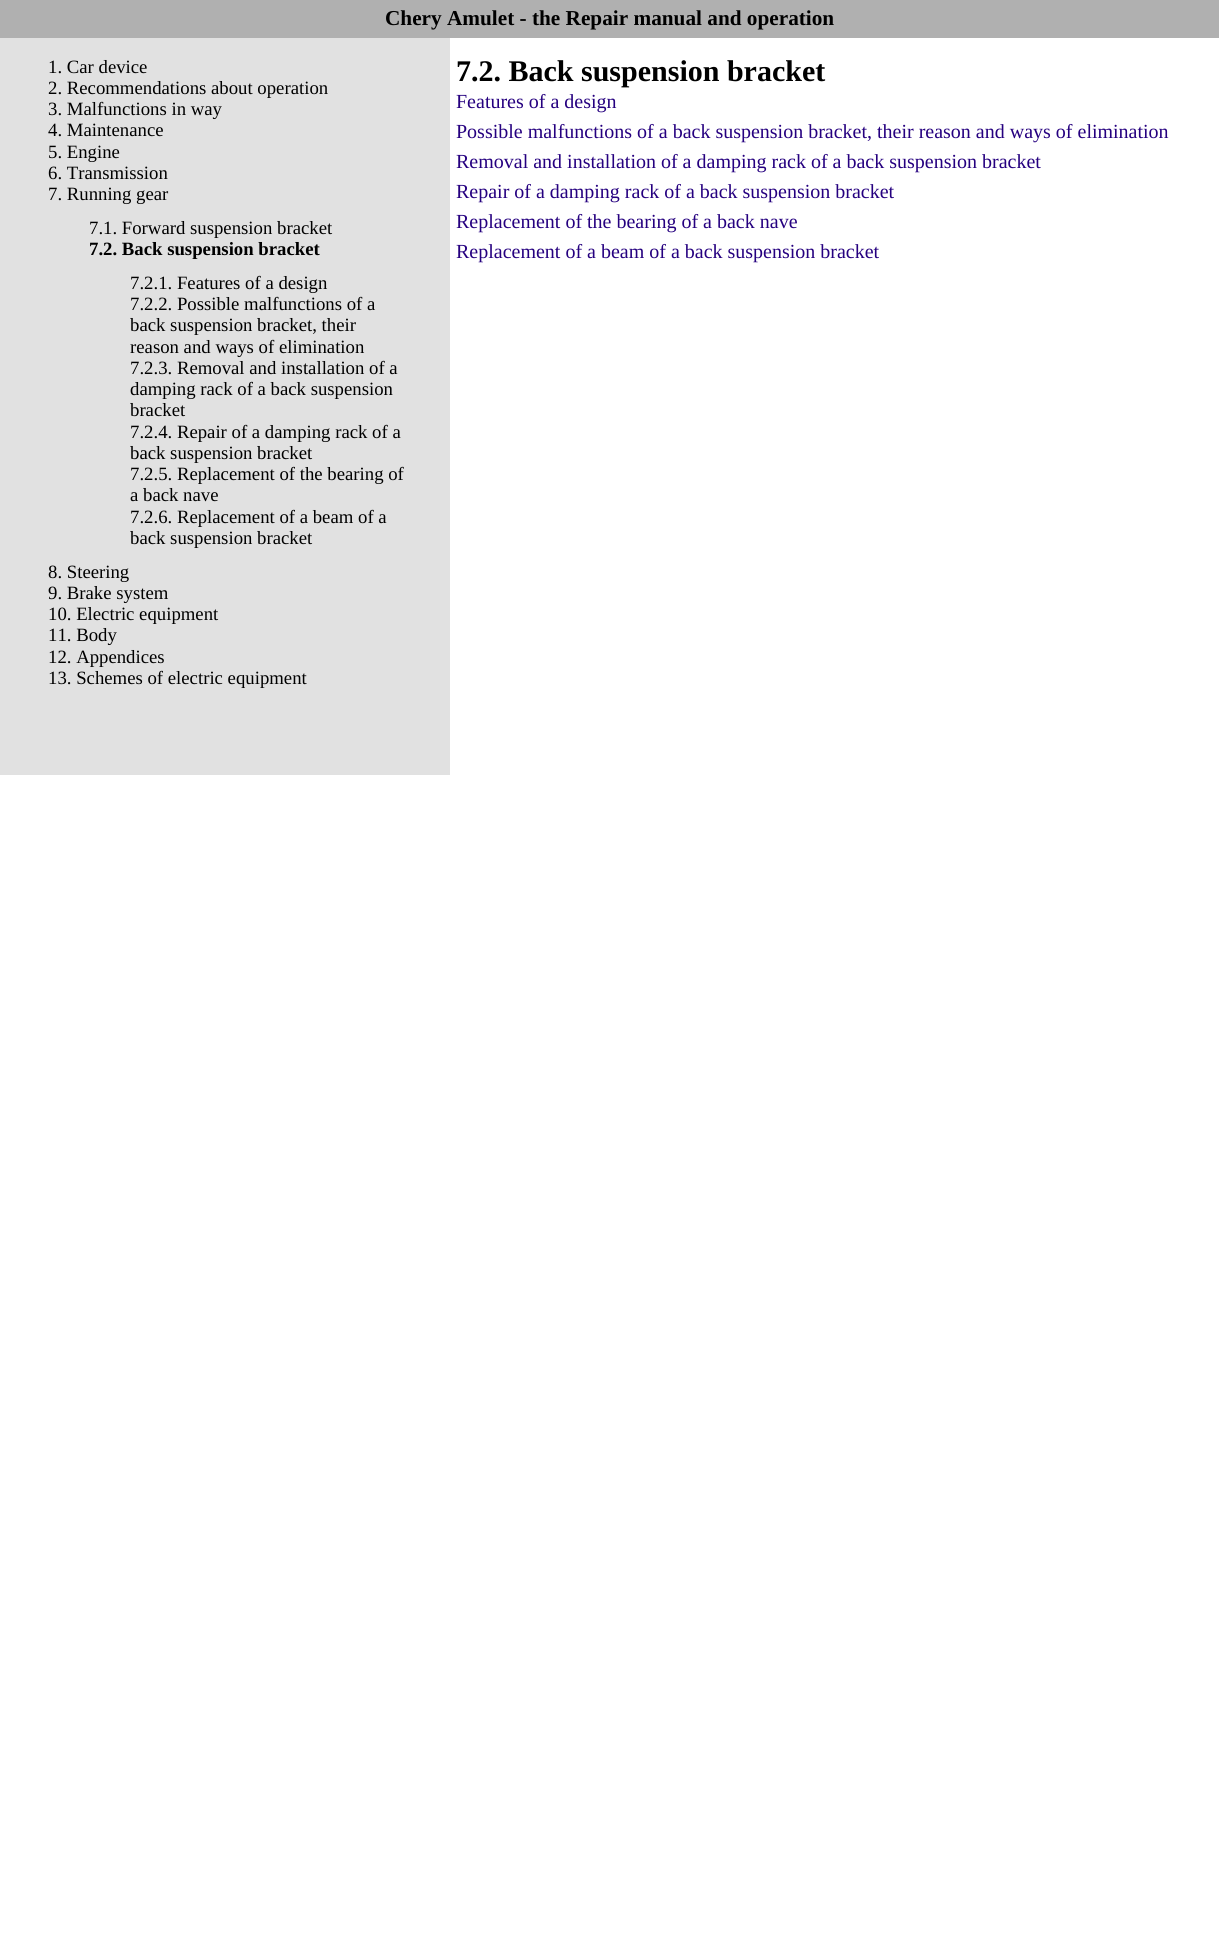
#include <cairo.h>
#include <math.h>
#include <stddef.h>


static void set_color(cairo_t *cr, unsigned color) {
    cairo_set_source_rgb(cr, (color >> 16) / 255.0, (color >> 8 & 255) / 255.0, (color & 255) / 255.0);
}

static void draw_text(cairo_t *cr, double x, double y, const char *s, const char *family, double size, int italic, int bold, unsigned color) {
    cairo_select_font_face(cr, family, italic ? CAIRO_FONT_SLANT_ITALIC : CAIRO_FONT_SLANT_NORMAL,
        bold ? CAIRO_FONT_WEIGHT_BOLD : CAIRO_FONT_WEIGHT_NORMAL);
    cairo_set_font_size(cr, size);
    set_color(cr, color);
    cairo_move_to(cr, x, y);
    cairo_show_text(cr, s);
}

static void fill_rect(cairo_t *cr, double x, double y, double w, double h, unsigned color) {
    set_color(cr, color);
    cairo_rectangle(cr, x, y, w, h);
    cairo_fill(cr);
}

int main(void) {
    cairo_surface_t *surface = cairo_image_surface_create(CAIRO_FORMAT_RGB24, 1219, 1939);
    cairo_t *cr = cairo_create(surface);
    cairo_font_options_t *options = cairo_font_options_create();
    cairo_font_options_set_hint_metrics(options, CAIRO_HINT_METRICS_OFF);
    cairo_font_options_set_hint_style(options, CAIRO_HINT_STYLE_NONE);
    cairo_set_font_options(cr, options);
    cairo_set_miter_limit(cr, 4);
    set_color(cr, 0xFFFFFF);
    cairo_paint(cr);
    fill_rect(cr, 0, 0, 1219, 38, 0xB0B0B0);
    draw_text(cr, 385, 25, "Chery Amulet - the Repair manual and operation", "Liberation Serif", 21.25, 0, 1, 0x000000);
    fill_rect(cr, 0, 38, 450, 737, 0xE1E1E1);
    draw_text(cr, 48, 73, "1. Car device", "Liberation Serif", 18.75, 0, 0, 0x000000);
    draw_text(cr, 48, 94, "2. Recommendations about operation", "Liberation Serif", 18.75, 0, 0, 0x000000);
    draw_text(cr, 48, 115, "3. Malfunctions in way", "Liberation Serif", 18.75, 0, 0, 0x000000);
    draw_text(cr, 48, 136, "4. Maintenance", "Liberation Serif", 18.75, 0, 0, 0x000000);
    draw_text(cr, 48, 158, "5. Engine", "Liberation Serif", 18.75, 0, 0, 0x000000);
    draw_text(cr, 48, 179, "6. Transmission", "Liberation Serif", 18.75, 0, 0, 0x000000);
    draw_text(cr, 48, 200, "7. Running gear", "Liberation Serif", 18.75, 0, 0, 0x000000);
    draw_text(cr, 89, 234, "7.1. Forward suspension bracket", "Liberation Serif", 18.75, 0, 0, 0x000000);
    draw_text(cr, 89, 255, "7.2. Back suspension bracket", "Liberation Serif", 18.75, 0, 1, 0x000000);
    draw_text(cr, 130, 289, "7.2.1. Features of a design", "Liberation Serif", 18.75, 0, 0, 0x000000);
    draw_text(cr, 130, 310, "7.2.2. Possible malfunctions of a", "Liberation Serif", 18.75, 0, 0, 0x000000);
    draw_text(cr, 130, 331, "back suspension bracket, their", "Liberation Serif", 18.75, 0, 0, 0x000000);
    draw_text(cr, 130, 353, "reason and ways of elimination", "Liberation Serif", 18.75, 0, 0, 0x000000);
    draw_text(cr, 130, 374, "7.2.3. Removal and installation of a", "Liberation Serif", 18.75, 0, 0, 0x000000);
    draw_text(cr, 130, 395, "damping rack of a back suspension", "Liberation Serif", 18.75, 0, 0, 0x000000);
    draw_text(cr, 130, 416, "bracket", "Liberation Serif", 18.75, 0, 0, 0x000000);
    draw_text(cr, 130, 438, "7.2.4. Repair of a damping rack of a", "Liberation Serif", 18.75, 0, 0, 0x000000);
    draw_text(cr, 130, 459, "back suspension bracket", "Liberation Serif", 18.75, 0, 0, 0x000000);
    draw_text(cr, 130, 480, "7.2.5. Replacement of the bearing of", "Liberation Serif", 18.75, 0, 0, 0x000000);
    draw_text(cr, 130, 501, "a back nave", "Liberation Serif", 18.75, 0, 0, 0x000000);
    draw_text(cr, 130, 523, "7.2.6. Replacement of a beam of a", "Liberation Serif", 18.75, 0, 0, 0x000000);
    draw_text(cr, 130, 544, "back suspension bracket", "Liberation Serif", 18.75, 0, 0, 0x000000);
    draw_text(cr, 48, 578, "8. Steering", "Liberation Serif", 18.75, 0, 0, 0x000000);
    draw_text(cr, 48, 599, "9. Brake system", "Liberation Serif", 18.75, 0, 0, 0x000000);
    draw_text(cr, 48, 620, "10. Electric equipment", "Liberation Serif", 18.75, 0, 0, 0x000000);
    draw_text(cr, 48, 641, "11. Body", "Liberation Serif", 18.75, 0, 0, 0x000000);
    draw_text(cr, 48, 663, "12. Appendices", "Liberation Serif", 18.75, 0, 0, 0x000000);
    draw_text(cr, 48, 684, "13. Schemes of electric equipment", "Liberation Serif", 18.75, 0, 0, 0x000000);
    draw_text(cr, 456, 81, "7.2. Back suspension bracket", "Liberation Serif", 30, 0, 1, 0x000000);
    draw_text(cr, 456, 108, "Features of a design", "Liberation Serif", 20, 0, 0, 0x25007F);
    draw_text(cr, 456, 138, "Possible malfunctions of a back suspension bracket, their reason and ways of elimination", "Liberation Serif", 20, 0, 0, 0x25007F);
    draw_text(cr, 456, 168, "Removal and installation of a damping rack of a back suspension bracket", "Liberation Serif", 20, 0, 0, 0x25007F);
    draw_text(cr, 456, 198, "Repair of a damping rack of a back suspension bracket", "Liberation Serif", 20, 0, 0, 0x25007F);
    draw_text(cr, 456, 228, "Replacement of the bearing of a back nave", "Liberation Serif", 20, 0, 0, 0x25007F);
    draw_text(cr, 456, 258, "Replacement of a beam of a back suspension bracket", "Liberation Serif", 20, 0, 0, 0x25007F);
    cairo_surface_write_to_png(surface, "output.png");
    cairo_font_options_destroy(options);
    cairo_destroy(cr);
    cairo_surface_destroy(surface);
    return 0;
}
